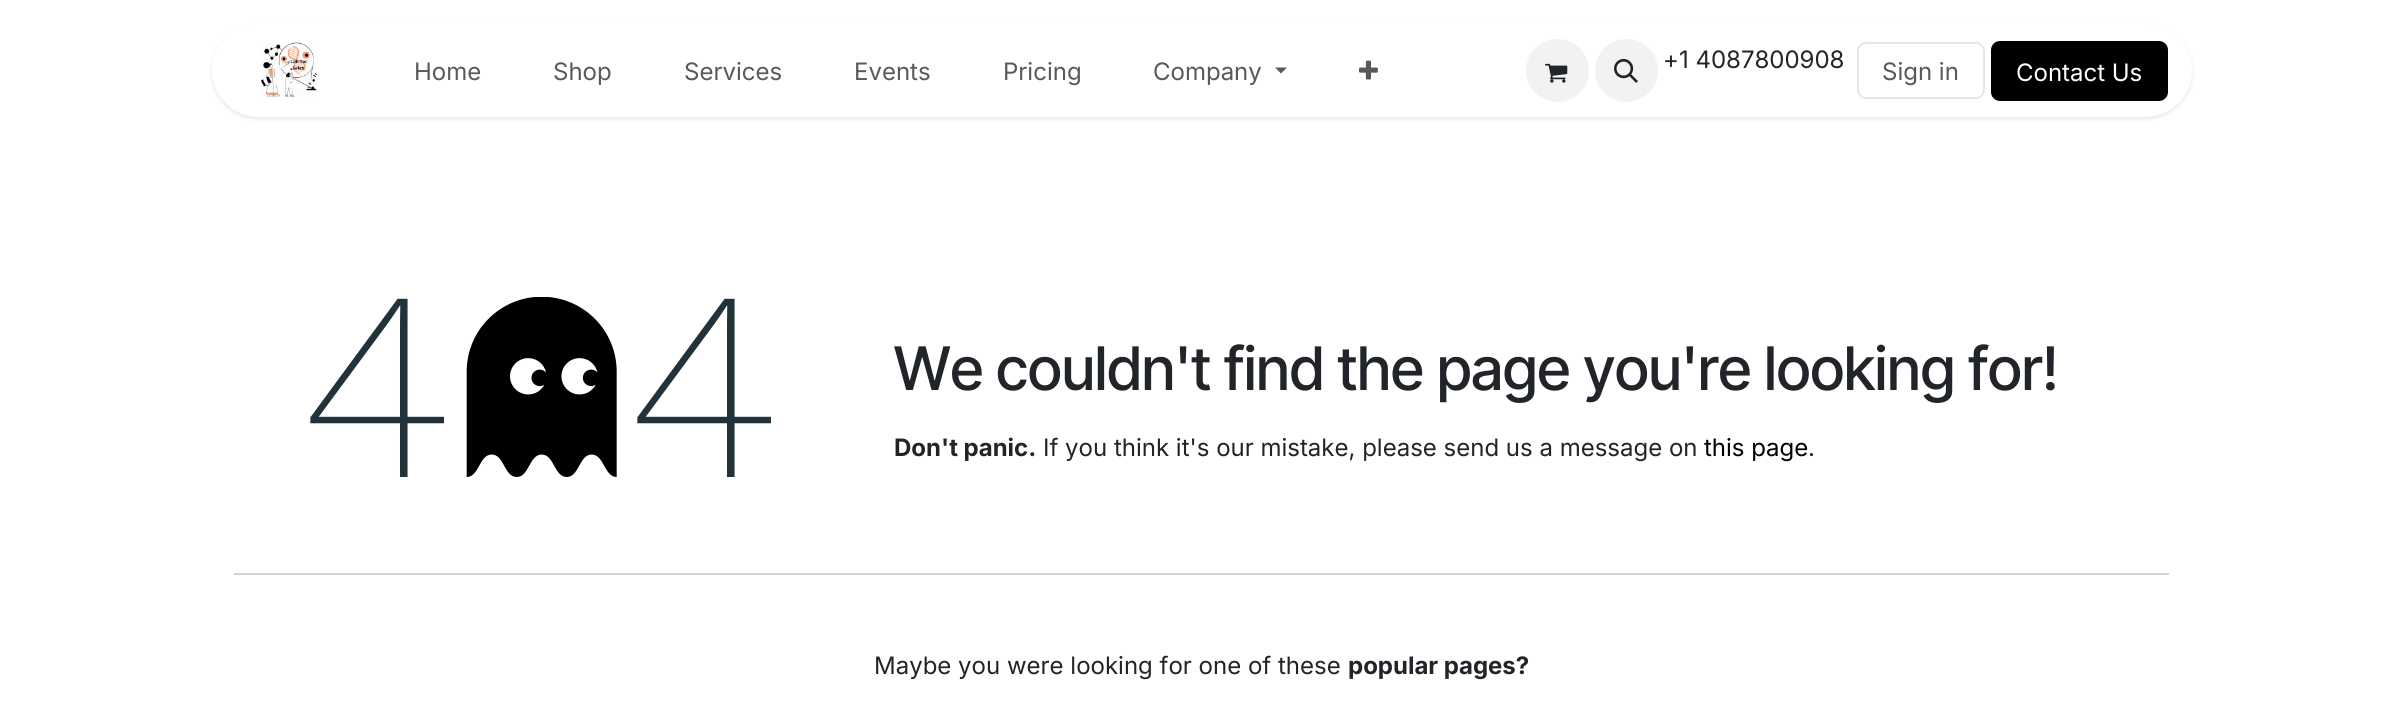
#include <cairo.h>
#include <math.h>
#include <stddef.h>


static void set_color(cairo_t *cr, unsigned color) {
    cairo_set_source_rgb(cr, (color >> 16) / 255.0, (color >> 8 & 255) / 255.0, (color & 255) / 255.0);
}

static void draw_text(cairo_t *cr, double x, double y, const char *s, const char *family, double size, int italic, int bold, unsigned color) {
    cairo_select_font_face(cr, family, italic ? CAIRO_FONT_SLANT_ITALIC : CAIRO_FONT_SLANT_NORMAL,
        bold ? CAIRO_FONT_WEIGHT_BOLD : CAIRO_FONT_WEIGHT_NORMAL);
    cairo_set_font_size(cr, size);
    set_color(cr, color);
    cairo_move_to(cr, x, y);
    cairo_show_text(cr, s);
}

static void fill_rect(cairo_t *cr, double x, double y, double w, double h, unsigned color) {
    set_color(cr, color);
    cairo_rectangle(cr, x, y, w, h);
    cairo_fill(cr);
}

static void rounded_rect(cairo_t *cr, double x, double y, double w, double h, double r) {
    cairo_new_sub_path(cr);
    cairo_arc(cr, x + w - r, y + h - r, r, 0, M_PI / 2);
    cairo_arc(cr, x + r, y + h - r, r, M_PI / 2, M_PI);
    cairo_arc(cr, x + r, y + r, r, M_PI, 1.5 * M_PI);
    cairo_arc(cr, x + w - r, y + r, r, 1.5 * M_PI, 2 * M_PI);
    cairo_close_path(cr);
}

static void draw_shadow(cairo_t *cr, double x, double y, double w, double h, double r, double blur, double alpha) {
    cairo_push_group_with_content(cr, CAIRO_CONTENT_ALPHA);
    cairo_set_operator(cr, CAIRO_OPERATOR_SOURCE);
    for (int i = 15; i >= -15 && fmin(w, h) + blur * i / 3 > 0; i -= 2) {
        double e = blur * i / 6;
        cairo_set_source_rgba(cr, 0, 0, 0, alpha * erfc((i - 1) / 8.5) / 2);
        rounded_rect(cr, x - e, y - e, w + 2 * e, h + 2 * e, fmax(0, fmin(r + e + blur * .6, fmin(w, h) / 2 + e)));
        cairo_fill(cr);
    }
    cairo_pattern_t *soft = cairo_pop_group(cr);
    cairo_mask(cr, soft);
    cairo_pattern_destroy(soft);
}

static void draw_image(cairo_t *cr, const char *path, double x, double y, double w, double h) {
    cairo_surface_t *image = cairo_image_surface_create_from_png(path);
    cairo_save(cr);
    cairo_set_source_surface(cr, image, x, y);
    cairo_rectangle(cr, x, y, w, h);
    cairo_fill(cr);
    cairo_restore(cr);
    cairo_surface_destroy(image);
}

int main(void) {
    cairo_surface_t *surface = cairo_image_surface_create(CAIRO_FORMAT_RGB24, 2403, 704);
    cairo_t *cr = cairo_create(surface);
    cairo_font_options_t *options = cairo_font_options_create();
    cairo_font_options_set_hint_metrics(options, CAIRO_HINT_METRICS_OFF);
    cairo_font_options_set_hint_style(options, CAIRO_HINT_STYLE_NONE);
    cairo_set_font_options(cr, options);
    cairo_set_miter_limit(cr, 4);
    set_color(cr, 0xFFFFFF);
    cairo_paint(cr);
    set_color(cr, 0x000000);
    draw_shadow(cr, 212, 26, 1980, 93, 46.5, 2, 0.1);
    set_color(cr, 0xFFFFFF);
    rounded_rect(cr, 212, 24, 1980, 93, 46.5);
    cairo_fill(cr);
    draw_image(cr, "assets/img1.png", 261, 42, 57, 55);
    draw_text(cr, 414, 80, "Home", "Inter", 24, 0, 0, 0x595959);
    draw_text(cr, 553, 80, "Shop", "Inter", 24, 0, 0, 0x595959);
    draw_text(cr, 684, 80, "Services", "Inter", 24, 0, 0, 0x595959);
    draw_text(cr, 854, 80, "Events", "Inter", 24, 0, 0, 0x595959);
    draw_text(cr, 1003, 80, "Pricing", "Inter", 24, 0, 0, 0x595959);
    draw_text(cr, 1153, 80, "Company", "Inter", 24, 0, 0, 0x595959);
    cairo_new_path(cr);
    cairo_move_to(cr, 1275, 67.5);
    cairo_line_to(cr, 1287, 67.5);
    cairo_line_to(cr, 1281, 73.5);
    cairo_close_path(cr);
    cairo_fill(cr);
    draw_image(cr, "assets/img2.png", 1359, 60, 19, 20);
    set_color(cr, 0xF2F2F2);
    cairo_arc(cr, 1557.5, 70.5, 31.5, 0, 2 * M_PI);
    cairo_fill(cr);
    draw_image(cr, "assets/img3.png", 1545, 63, 23, 20);
    cairo_arc(cr, 1626.5, 70.5, 31.5, 0, 2 * M_PI);
    cairo_fill(cr);
    draw_image(cr, "assets/img4.png", 1614, 58, 24, 25);
    draw_text(cr, 1663, 68, "+1 4087800908", "Inter", 24, 0, 0, 0x212529);
    rounded_rect(cr, 1858, 43, 126, 55, 8);
    set_color(cr, 0xE6E6E6);
    cairo_stroke(cr);
    draw_text(cr, 1882, 80, "Sign in", "Inter", 24, 0, 0, 0x595959);
    set_color(cr, 0x000000);
    rounded_rect(cr, 1992, 42, 175, 58, 8);
    cairo_fill_preserve(cr);
    cairo_stroke(cr);
    draw_text(cr, 2016, 81, "Contact Us", "Inter", 24, 0, 0, 0xFFFFFF);
    draw_image(cr, "assets/img5.png", 310, 297, 461, 180);
    draw_text(cr, 894, 390, "We couldn't find the page you're looking for!", "Inter Tight Medium", 60, 0, 0, 0x212529);
    draw_text(cr, 894, 456, "Don't panic.", "Inter", 24, 0, 1, 0x212529);
    draw_text(cr, 1043, 456, "If you think it's our mistake, please send us a message on", "Inter", 24, 0, 0, 0x212529);
    draw_text(cr, 1704, 456, "this page", "Inter", 24, 0, 0, 0x000000);
    draw_text(cr, 1808, 456, ".", "Inter", 24, 0, 0, 0x212529);
    fill_rect(cr, 234, 573, 1935, 2, 0xCED4DA);
    draw_text(cr, 874, 674, "Maybe you were looking for one of these", "Inter", 24, 0, 0, 0x212529);
    draw_text(cr, 1348, 674, "popular pages?", "Inter", 24, 0, 1, 0x212529);
    cairo_surface_write_to_png(surface, "output.png");
    cairo_font_options_destroy(options);
    cairo_destroy(cr);
    cairo_surface_destroy(surface);
    return 0;
}
